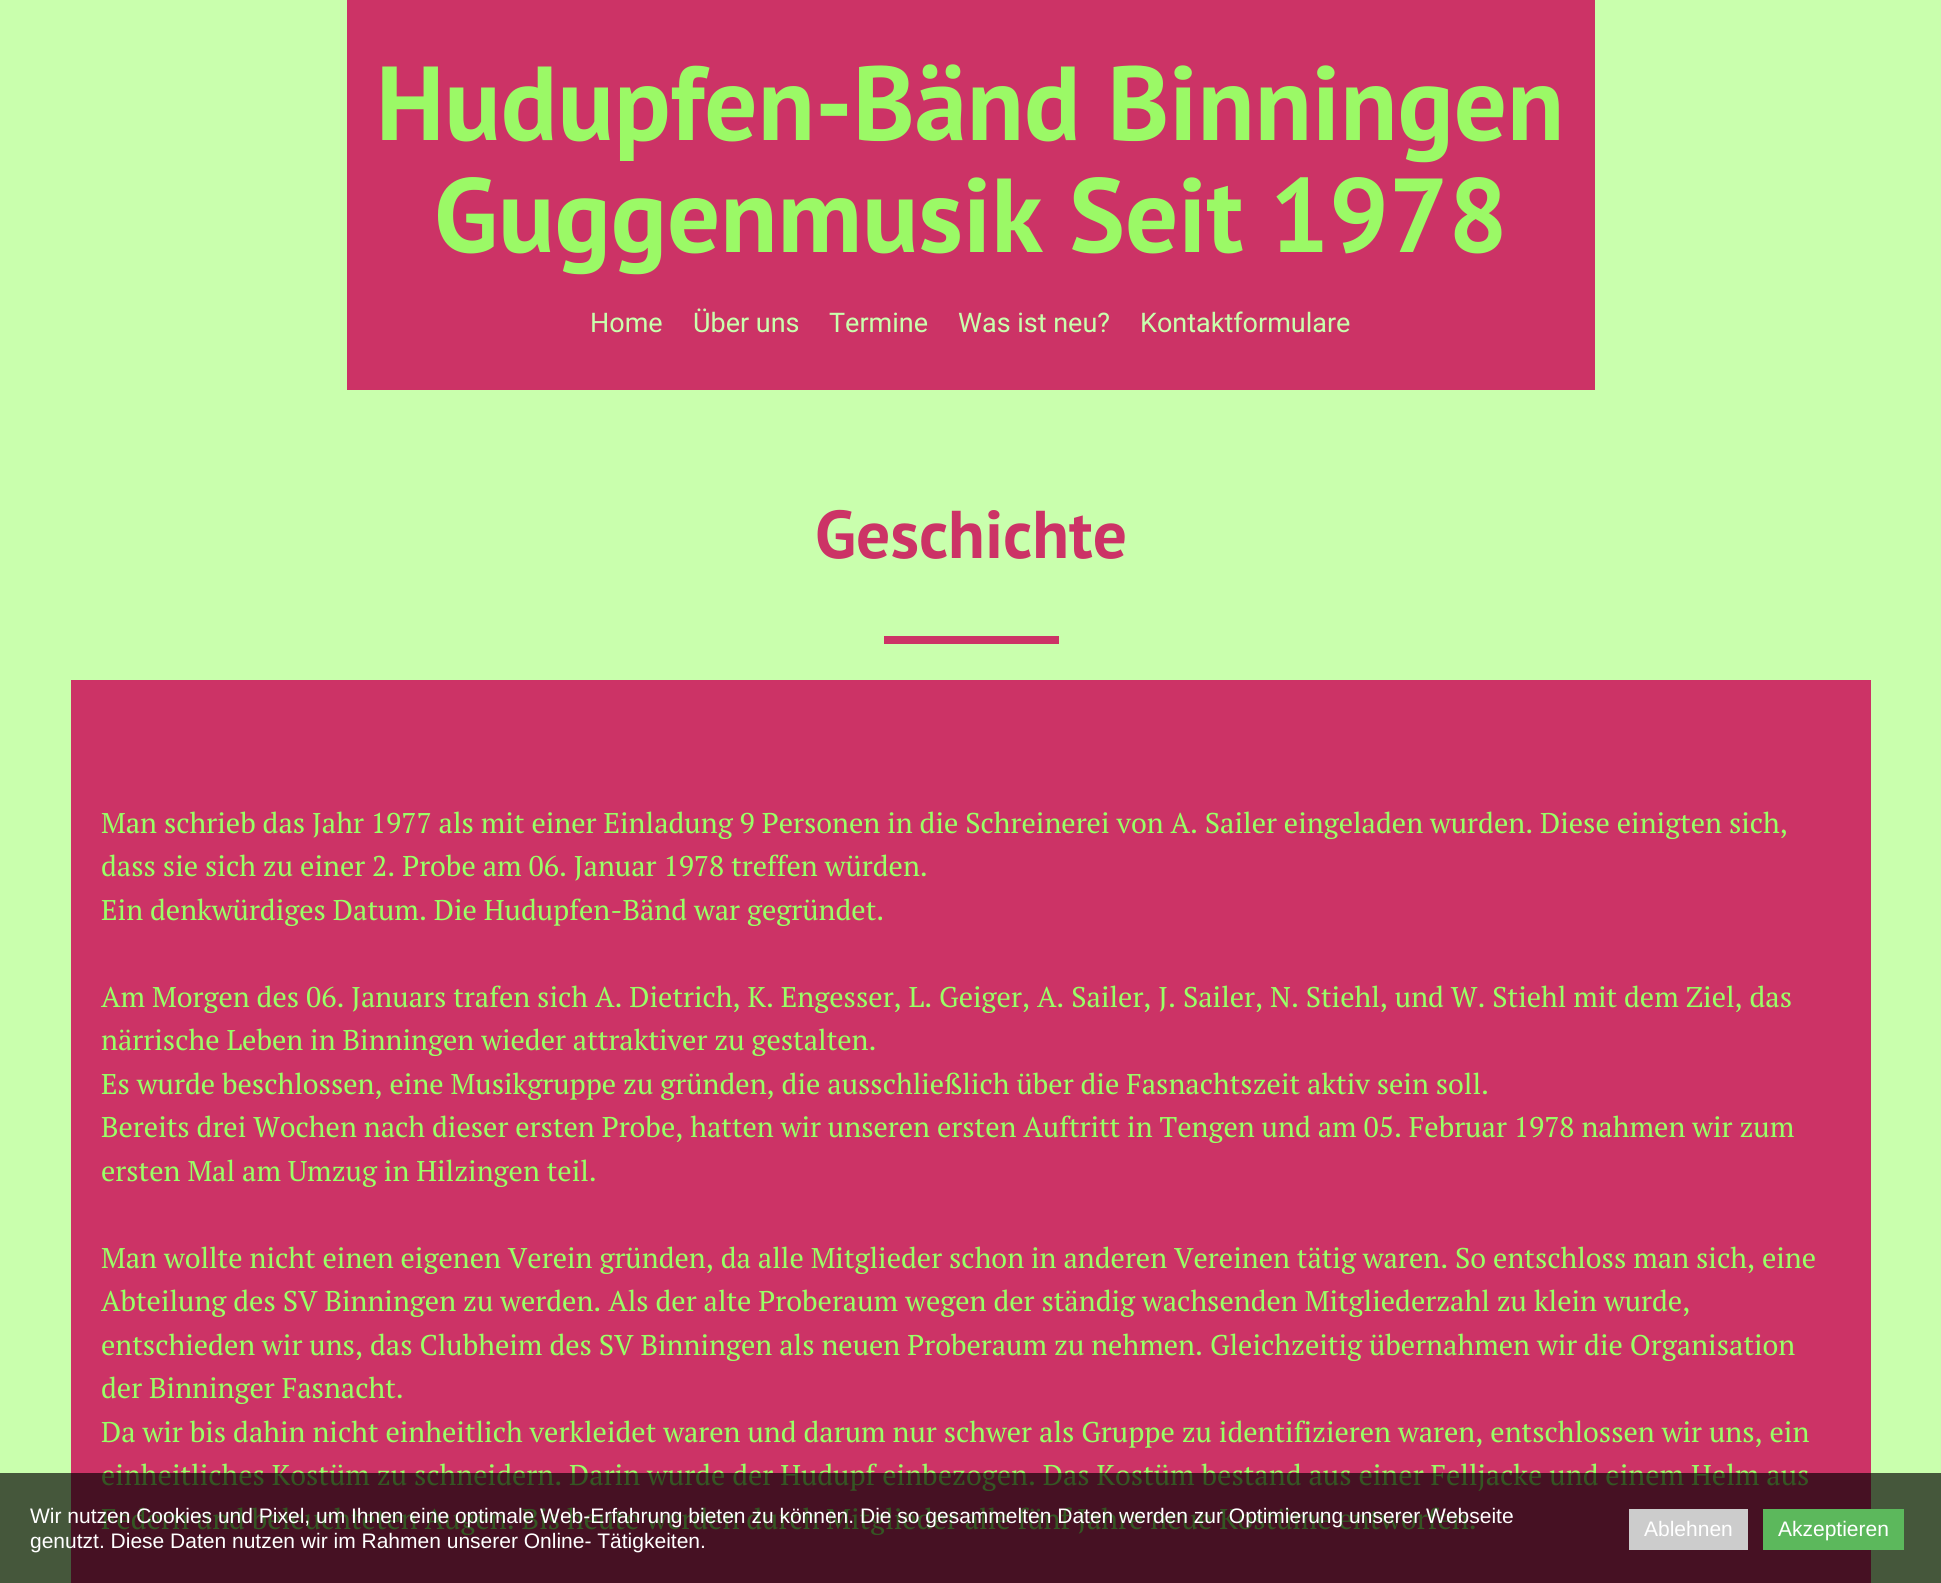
#include <cairo.h>
#include <math.h>
#include <stddef.h>


static void set_color(cairo_t *cr, unsigned color) {
    cairo_set_source_rgb(cr, (color >> 16) / 255.0, (color >> 8 & 255) / 255.0, (color & 255) / 255.0);
}

static void draw_text(cairo_t *cr, double x, double y, const char *s, const char *family, double size, int italic, int bold, unsigned color) {
    cairo_select_font_face(cr, family, italic ? CAIRO_FONT_SLANT_ITALIC : CAIRO_FONT_SLANT_NORMAL,
        bold ? CAIRO_FONT_WEIGHT_BOLD : CAIRO_FONT_WEIGHT_NORMAL);
    cairo_set_font_size(cr, size);
    set_color(cr, color);
    cairo_move_to(cr, x, y);
    cairo_show_text(cr, s);
}

static void fill_rect(cairo_t *cr, double x, double y, double w, double h, unsigned color) {
    set_color(cr, color);
    cairo_rectangle(cr, x, y, w, h);
    cairo_fill(cr);
}

int main(void) {
    cairo_surface_t *surface = cairo_image_surface_create(CAIRO_FORMAT_RGB24, 1941, 1583);
    cairo_t *cr = cairo_create(surface);
    cairo_font_options_t *options = cairo_font_options_create();
    cairo_font_options_set_hint_metrics(options, CAIRO_HINT_METRICS_OFF);
    cairo_font_options_set_hint_style(options, CAIRO_HINT_STYLE_NONE);
    cairo_set_font_options(cr, options);
    cairo_set_miter_limit(cr, 4);
    set_color(cr, 0xC9FFAD);
    cairo_paint(cr);
    fill_rect(cr, 347, 0, 1248, 390, 0xCC3366);
    draw_text(cr, 376, 140, "Hudupfen-Bänd Binningen", "PT Sans", 105, 0, 1, 0x9BF966);
    draw_text(cr, 434, 252, "Guggenmusik Seit 1978", "PT Sans", 105, 0, 1, 0x9BF966);
    draw_text(cr, 590, 332, "Home", "Roboto", 27, 0, 0, 0xC9FFAD);
    draw_text(cr, 693, 332, "Über uns", "Roboto", 27, 0, 0, 0xC9FFAD);
    draw_text(cr, 829, 332, "Termine", "Roboto", 27, 0, 0, 0xC9FFAD);
    draw_text(cr, 958, 332, "Was ist neu?", "Roboto", 27, 0, 0, 0xC9FFAD);
    draw_text(cr, 1140, 332, "Kontaktformulare", "Roboto", 27, 0, 0, 0xC9FFAD);
    draw_text(cr, 815, 558, "Geschichte", "PT Sans", 67.5, 0, 1, 0xCC3366);
    fill_rect(cr, 884, 636, 175, 8, 0xCC3366);
    fill_rect(cr, 71, 680, 1800, 903, 0xCC3366);
    draw_text(cr, 101, 833, "Man schrieb das Jahr 1977 als mit einer Einladung 9 Personen in die Schreinerei von A. Sailer eingeladen wurden. Diese einigten sich,", "PT Serif", 28.5, 0, 0, 0x99FF66);
    draw_text(cr, 101, 876, "dass sie sich zu einer 2. Probe am 06. Januar 1978 treffen würden.", "PT Serif", 28.5, 0, 0, 0x99FF66);
    draw_text(cr, 101, 920, "Ein denkwürdiges Datum. Die Hudupfen-Bänd war gegründet.", "PT Serif", 28.5, 0, 0, 0x99FF66);
    draw_text(cr, 101, 1007, "Am Morgen des 06. Januars trafen sich A. Dietrich, K. Engesser, L. Geiger, A. Sailer, J. Sailer, N. Stiehl, und W. Stiehl mit dem Ziel, das", "PT Serif", 28.5, 0, 0, 0x99FF66);
    draw_text(cr, 101, 1050, "närrische Leben in Binningen wieder attraktiver zu gestalten.", "PT Serif", 28.5, 0, 0, 0x99FF66);
    draw_text(cr, 101, 1094, "Es wurde beschlossen, eine Musikgruppe zu gründen, die ausschließlich über die Fasnachtszeit aktiv sein soll.", "PT Serif", 28.5, 0, 0, 0x99FF66);
    draw_text(cr, 101, 1137, "Bereits drei Wochen nach dieser ersten Probe, hatten wir unseren ersten Auftritt in Tengen und am 05. Februar 1978 nahmen wir zum", "PT Serif", 28.5, 0, 0, 0x99FF66);
    draw_text(cr, 101, 1181, "ersten Mal am Umzug in Hilzingen teil.", "PT Serif", 28.5, 0, 0, 0x99FF66);
    draw_text(cr, 101, 1268, "Man wollte nicht einen eigenen Verein gründen, da alle Mitglieder schon in anderen Vereinen tätig waren. So entschloss man sich, eine", "PT Serif", 28.5, 0, 0, 0x99FF66);
    draw_text(cr, 101, 1311, "Abteilung des SV Binningen zu werden. Als der alte Proberaum wegen der ständig wachsenden Mitgliederzahl zu klein wurde,", "PT Serif", 28.5, 0, 0, 0x99FF66);
    draw_text(cr, 101, 1355, "entschieden wir uns, das Clubheim des SV Binningen als neuen Proberaum zu nehmen. Gleichzeitig übernahmen wir die Organisation", "PT Serif", 28.5, 0, 0, 0x99FF66);
    draw_text(cr, 101, 1398, "der Binninger Fasnacht.", "PT Serif", 28.5, 0, 0, 0x99FF66);
    draw_text(cr, 101, 1442, "Da wir bis dahin nicht einheitlich verkleidet waren und darum nur schwer als Gruppe zu identifizieren waren, entschlossen wir uns, ein", "PT Serif", 28.5, 0, 0, 0x99FF66);
    draw_text(cr, 101, 1485, "einheitliches Kostüm zu schneidern. Darin wurde der Hudupf einbezogen. Das Kostüm bestand aus einer Felljacke und einem Helm aus", "PT Serif", 28.5, 0, 0, 0x99FF66);
    draw_text(cr, 101, 1529, "Federn und beleuchteten Augen. Bis heute werden durch Mitglieder alle fünf Jahre neue Kostüme entworfen.", "PT Serif", 28.5, 0, 0, 0x99FF66);
    cairo_set_source_rgba(cr, 0, 0, 0, 0.66);
    cairo_rectangle(cr, 0, 1473, 1941, 110);
    cairo_fill(cr);
    draw_text(cr, 30, 1523, "Wir nutzen Cookies und Pixel, um Ihnen eine optimale Web-Erfahrung bieten zu können. Die so gesammelten Daten werden zur Optimierung unserer Webseite", "Liberation Sans", 21, 0, 0, 0xFFFFFF);
    draw_text(cr, 30, 1548, "genutzt. Diese Daten nutzen wir im Rahmen unserer Online- Tätigkeiten.", "Liberation Sans", 21, 0, 0, 0xFFFFFF);
    fill_rect(cr, 1629, 1509, 119, 41, 0xCCCCCC);
    draw_text(cr, 1644, 1536, "Ablehnen", "Liberation Sans", 21, 0, 0, 0xFFFFFF);
    fill_rect(cr, 1763, 1509, 141, 41, 0x5CB85C);
    draw_text(cr, 1778, 1536, "Akzeptieren", "Liberation Sans", 21, 0, 0, 0xFFFFFF);
    cairo_surface_write_to_png(surface, "output.png");
    cairo_font_options_destroy(options);
    cairo_destroy(cr);
    cairo_surface_destroy(surface);
    return 0;
}
